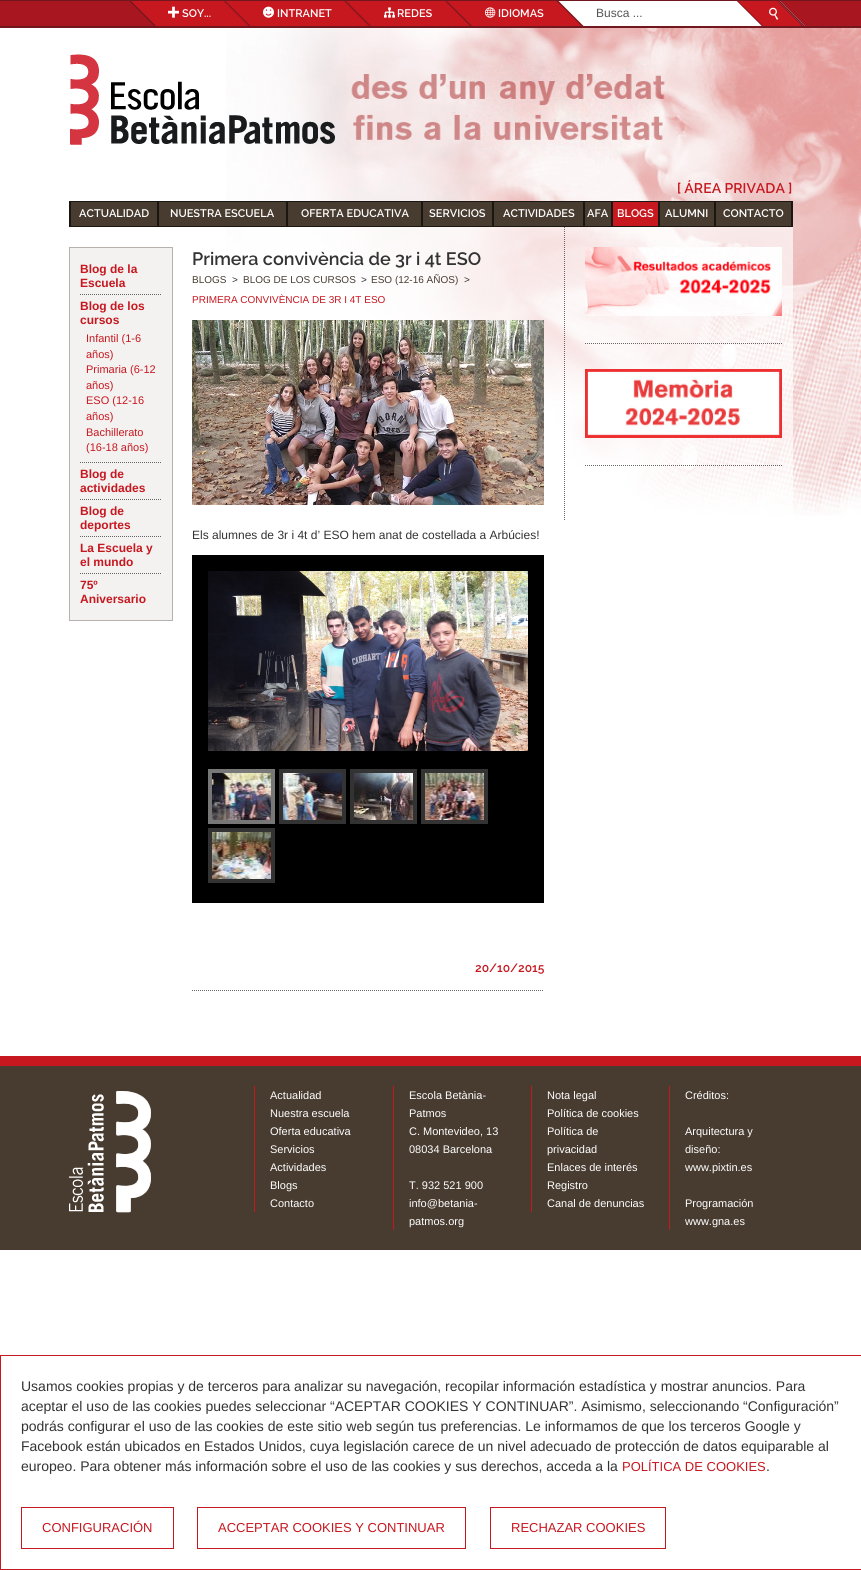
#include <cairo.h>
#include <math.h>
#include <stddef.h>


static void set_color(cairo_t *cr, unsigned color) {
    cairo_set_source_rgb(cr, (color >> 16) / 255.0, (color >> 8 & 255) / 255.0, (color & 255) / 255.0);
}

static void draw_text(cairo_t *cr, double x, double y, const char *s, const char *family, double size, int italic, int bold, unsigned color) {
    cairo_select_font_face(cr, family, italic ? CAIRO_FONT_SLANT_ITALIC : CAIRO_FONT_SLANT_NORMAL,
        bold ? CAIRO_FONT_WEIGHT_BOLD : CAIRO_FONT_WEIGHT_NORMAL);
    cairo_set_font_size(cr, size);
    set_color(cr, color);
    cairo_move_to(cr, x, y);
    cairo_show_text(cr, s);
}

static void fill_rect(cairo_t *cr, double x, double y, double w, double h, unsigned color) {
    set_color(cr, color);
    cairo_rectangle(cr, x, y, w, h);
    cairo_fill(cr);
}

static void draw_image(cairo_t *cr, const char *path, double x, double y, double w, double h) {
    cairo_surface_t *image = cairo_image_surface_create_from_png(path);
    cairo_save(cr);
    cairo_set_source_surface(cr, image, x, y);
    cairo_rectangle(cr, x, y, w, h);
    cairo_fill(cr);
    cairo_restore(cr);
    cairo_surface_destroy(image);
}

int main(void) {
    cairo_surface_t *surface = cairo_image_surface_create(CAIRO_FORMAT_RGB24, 861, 1570);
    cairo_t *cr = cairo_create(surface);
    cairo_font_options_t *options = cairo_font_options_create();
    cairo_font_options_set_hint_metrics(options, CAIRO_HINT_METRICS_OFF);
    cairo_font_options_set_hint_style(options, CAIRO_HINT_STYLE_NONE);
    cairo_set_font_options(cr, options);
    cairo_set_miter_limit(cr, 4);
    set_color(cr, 0xFFFFFF);
    cairo_paint(cr);
    fill_rect(cr, 0, 1, 861, 25, 0xA8171F);
    fill_rect(cr, 0, 0, 861, 1, 0x73171F);
    fill_rect(cr, 0, 26, 861, 2, 0x73171F);
    set_color(cr, 0xC7171F);
    cairo_new_path(cr);
    cairo_move_to(cr, 129, 1);
    cairo_line_to(cr, 224, 1);
    cairo_line_to(cr, 249, 26);
    cairo_line_to(cr, 154, 26);
    cairo_close_path(cr);
    cairo_fill(cr);
    set_color(cr, 0x73171F);
    cairo_new_path(cr);
    cairo_move_to(cr, 223.5, 1);
    cairo_line_to(cr, 224.5, 1);
    cairo_line_to(cr, 249.5, 26);
    cairo_line_to(cr, 248.5, 26);
    cairo_close_path(cr);
    cairo_fill(cr);
    cairo_new_path(cr);
    cairo_move_to(cr, 129, 1);
    cairo_line_to(cr, 131, 1);
    cairo_line_to(cr, 156, 26);
    cairo_line_to(cr, 154, 26);
    cairo_close_path(cr);
    cairo_fill(cr);
    draw_image(cr, "assets/img1.png", 168, 6, 11, 12);
    draw_text(cr, 182, 17, "SOY...", "Raleway SemiBold", 11, 0, 0, 0xFFFFFF);
    set_color(cr, 0xC7171F);
    cairo_new_path(cr);
    cairo_move_to(cr, 224, 1);
    cairo_line_to(cr, 345, 1);
    cairo_line_to(cr, 370, 26);
    cairo_line_to(cr, 249, 26);
    cairo_close_path(cr);
    cairo_fill(cr);
    set_color(cr, 0x73171F);
    cairo_new_path(cr);
    cairo_move_to(cr, 344, 1);
    cairo_line_to(cr, 345, 1);
    cairo_line_to(cr, 370, 26);
    cairo_line_to(cr, 369, 26);
    cairo_close_path(cr);
    cairo_fill(cr);
    cairo_new_path(cr);
    cairo_move_to(cr, 224.5, 1);
    cairo_line_to(cr, 225.5, 1);
    cairo_line_to(cr, 250.5, 26);
    cairo_line_to(cr, 249.5, 26);
    cairo_close_path(cr);
    cairo_fill(cr);
    draw_image(cr, "assets/img2.png", 263, 6, 11, 12);
    draw_text(cr, 277, 17, "INTRANET", "Raleway SemiBold", 11, 0, 0, 0xFFFFFF);
    set_color(cr, 0xC7171F);
    cairo_new_path(cr);
    cairo_move_to(cr, 345, 1);
    cairo_line_to(cr, 446, 1);
    cairo_line_to(cr, 471, 26);
    cairo_line_to(cr, 370, 26);
    cairo_close_path(cr);
    cairo_fill(cr);
    set_color(cr, 0x73171F);
    cairo_new_path(cr);
    cairo_move_to(cr, 445, 1);
    cairo_line_to(cr, 446, 1);
    cairo_line_to(cr, 471, 26);
    cairo_line_to(cr, 470, 26);
    cairo_close_path(cr);
    cairo_fill(cr);
    cairo_new_path(cr);
    cairo_move_to(cr, 345, 1);
    cairo_line_to(cr, 346, 1);
    cairo_line_to(cr, 371, 26);
    cairo_line_to(cr, 370, 26);
    cairo_close_path(cr);
    cairo_fill(cr);
    draw_image(cr, "assets/img3.png", 384, 7, 11, 11);
    draw_text(cr, 397, 17, "REDES", "Raleway SemiBold", 11, 0, 0, 0xFFFFFF);
    set_color(cr, 0xC7171F);
    cairo_new_path(cr);
    cairo_move_to(cr, 446, 1);
    cairo_line_to(cr, 558, 1);
    cairo_line_to(cr, 583, 26);
    cairo_line_to(cr, 471, 26);
    cairo_close_path(cr);
    cairo_fill(cr);
    set_color(cr, 0x73171F);
    cairo_new_path(cr);
    cairo_move_to(cr, 556.5, 1);
    cairo_line_to(cr, 557.5, 1);
    cairo_line_to(cr, 582.5, 26);
    cairo_line_to(cr, 581.5, 26);
    cairo_close_path(cr);
    cairo_fill(cr);
    cairo_new_path(cr);
    cairo_move_to(cr, 446, 1);
    cairo_line_to(cr, 447, 1);
    cairo_line_to(cr, 472, 26);
    cairo_line_to(cr, 471, 26);
    cairo_close_path(cr);
    cairo_fill(cr);
    draw_image(cr, "assets/img4.png", 485, 7, 11, 11);
    draw_text(cr, 498, 17, "IDIOMAS", "Raleway SemiBold", 11, 0, 0, 0xFFFFFF);
    cairo_new_path(cr);
    cairo_move_to(cr, 558, 1);
    cairo_line_to(cr, 780, 1);
    cairo_line_to(cr, 805, 26);
    cairo_line_to(cr, 583, 26);
    cairo_close_path(cr);
    cairo_fill(cr);
    set_color(cr, 0x73171F);
    cairo_new_path(cr);
    cairo_move_to(cr, 778, 1);
    cairo_line_to(cr, 780, 1);
    cairo_line_to(cr, 805, 26);
    cairo_line_to(cr, 803, 26);
    cairo_close_path(cr);
    cairo_fill(cr);
    cairo_new_path(cr);
    cairo_move_to(cr, 557.5, 1);
    cairo_line_to(cr, 558.5, 1);
    cairo_line_to(cr, 583.5, 26);
    cairo_line_to(cr, 582.5, 26);
    cairo_close_path(cr);
    cairo_fill(cr);
    draw_text(cr, 596, 17, "Busca ...", "Liberation Sans", 12, 0, 0, 0x555555);
    set_color(cr, 0xC7171F);
    cairo_new_path(cr);
    cairo_move_to(cr, 737, 1);
    cairo_line_to(cr, 778, 1);
    cairo_line_to(cr, 803, 26);
    cairo_line_to(cr, 762, 26);
    cairo_close_path(cr);
    cairo_fill(cr);
    set_color(cr, 0x73171F);
    cairo_new_path(cr);
    cairo_move_to(cr, 777, 1);
    cairo_line_to(cr, 778, 1);
    cairo_line_to(cr, 803, 26);
    cairo_line_to(cr, 802, 26);
    cairo_close_path(cr);
    cairo_fill(cr);
    cairo_new_path(cr);
    cairo_move_to(cr, 737, 1);
    cairo_line_to(cr, 738, 1);
    cairo_line_to(cr, 763, 26);
    cairo_line_to(cr, 762, 26);
    cairo_close_path(cr);
    cairo_fill(cr);
    draw_image(cr, "assets/img5.png", 769, 7, 10, 13);
    draw_image(cr, "assets/img7.png", 226, 28, 635, 488);
    draw_image(cr, "assets/img6.png", 70, 54, 265, 91);
    draw_text(cr, 677, 193, "[ ÁREA PRIVADA ]", "Raleway SemiBold", 14, 0, 0, 0xC7171F);
    cairo_rectangle(cr, 69.5, 201.5, 723, 25);
    set_color(cr, 0x1A1612);
    cairo_set_line_width(cr, 1);
    cairo_stroke(cr);
    fill_rect(cr, 71, 202, 86, 24, 0x483C31);
    fill_rect(cr, 157, 202, 2, 24, 0x1A1612);
    fill_rect(cr, 70, 202, 1, 24, 0x1A1612);
    draw_text(cr, 79, 217, "ACTUALIDAD", "Raleway SemiBold", 11, 0, 0, 0xFFFFFF);
    fill_rect(cr, 159, 202, 127, 24, 0x483C31);
    fill_rect(cr, 286, 202, 2, 24, 0x1A1612);
    draw_text(cr, 170, 217, "NUESTRA ESCUELA", "Raleway SemiBold", 11, 0, 0, 0xFFFFFF);
    fill_rect(cr, 288, 202, 133, 24, 0x483C31);
    fill_rect(cr, 421, 202, 2, 24, 0x1A1612);
    draw_text(cr, 301, 217, "OFERTA EDUCATIVA", "Raleway SemiBold", 11, 0, 0, 0xFFFFFF);
    fill_rect(cr, 423, 202, 69, 24, 0x483C31);
    fill_rect(cr, 492, 202, 2, 24, 0x1A1612);
    draw_text(cr, 429, 217, "SERVICIOS", "Raleway SemiBold", 11, 0, 0, 0xFFFFFF);
    fill_rect(cr, 494, 202, 89, 24, 0x483C31);
    fill_rect(cr, 583, 202, 2, 24, 0x1A1612);
    draw_text(cr, 503, 217, "ACTIVIDADES", "Raleway SemiBold", 11, 0, 0, 0xFFFFFF);
    fill_rect(cr, 585, 202, 26, 24, 0x483C31);
    fill_rect(cr, 611, 202, 2, 24, 0x1A1612);
    draw_text(cr, 587, 217, "AFA", "Raleway SemiBold", 11, 0, 0, 0xFFFFFF);
    fill_rect(cr, 613, 202, 45, 24, 0xC7171F);
    fill_rect(cr, 658, 202, 2, 24, 0x1A1612);
    draw_text(cr, 617, 217, "BLOGS", "Raleway SemiBold", 11, 0, 0, 0xFFFFFF);
    fill_rect(cr, 660, 202, 54, 24, 0x483C31);
    fill_rect(cr, 714, 202, 2, 24, 0x1A1612);
    draw_text(cr, 665, 217, "ALUMNI", "Raleway SemiBold", 11, 0, 0, 0xFFFFFF);
    fill_rect(cr, 716, 202, 75, 24, 0x483C31);
    fill_rect(cr, 791, 202, 1, 24, 0x1A1612);
    draw_text(cr, 723, 217, "CONTACTO", "Raleway SemiBold", 11, 0, 0, 0xFFFFFF);
    cairo_set_source_rgba(cr, 1, 1, 1, 0.65);
    cairo_rectangle(cr, 242, 227, 551, 289);
    cairo_fill(cr);
    set_color(cr, 0xF3F2F1);
    cairo_rectangle(cr, 69.5, 247.5, 103, 373);
    cairo_fill_preserve(cr);
    set_color(cr, 0xB6B1AD);
    cairo_stroke(cr);
    cairo_new_path(cr);
    cairo_move_to(cr, 80, 294.5);
    cairo_line_to(cr, 162, 294.5);
    set_color(cr, 0x666666);
    cairo_set_dash(cr, (double[]){1, 1}, 2, 0);
    cairo_stroke(cr);
    draw_text(cr, 80, 273, "Blog de la", "Liberation Sans", 12, 0, 1, 0xC7171F);
    draw_text(cr, 80, 287, "Escuela", "Liberation Sans", 12, 0, 1, 0xC7171F);
    cairo_new_path(cr);
    cairo_move_to(cr, 80, 462.5);
    cairo_line_to(cr, 162, 462.5);
    set_color(cr, 0x666666);
    cairo_stroke(cr);
    draw_text(cr, 80, 310, "Blog de los", "Liberation Sans", 12, 0, 1, 0xC7171F);
    draw_text(cr, 80, 324, "cursos", "Liberation Sans", 12, 0, 1, 0xC7171F);
    draw_text(cr, 86, 342, "Infantil (1-6", "Liberation Sans", 11, 0, 0, 0xC7171F);
    draw_text(cr, 86, 358, "años)", "Liberation Sans", 11, 0, 0, 0xC7171F);
    draw_text(cr, 86, 373, "Primaria (6-12", "Liberation Sans", 11, 0, 0, 0xC7171F);
    draw_text(cr, 86, 389, "años)", "Liberation Sans", 11, 0, 0, 0xC7171F);
    draw_text(cr, 86, 404, "ESO (12-16", "Liberation Sans", 11, 0, 0, 0xC7171F);
    draw_text(cr, 86, 420, "años)", "Liberation Sans", 11, 0, 0, 0xC7171F);
    draw_text(cr, 86, 436, "Bachillerato", "Liberation Sans", 11, 0, 0, 0xC7171F);
    draw_text(cr, 86, 451, "(16-18 años)", "Liberation Sans", 11, 0, 0, 0xC7171F);
    cairo_new_path(cr);
    cairo_move_to(cr, 80, 499.5);
    cairo_line_to(cr, 162, 499.5);
    set_color(cr, 0x666666);
    cairo_stroke(cr);
    draw_text(cr, 80, 478, "Blog de", "Liberation Sans", 12, 0, 1, 0xC7171F);
    draw_text(cr, 80, 492, "actividades", "Liberation Sans", 12, 0, 1, 0xC7171F);
    cairo_new_path(cr);
    cairo_move_to(cr, 80, 536.5);
    cairo_line_to(cr, 162, 536.5);
    set_color(cr, 0x666666);
    cairo_stroke(cr);
    draw_text(cr, 80, 515, "Blog de", "Liberation Sans", 12, 0, 1, 0xC7171F);
    draw_text(cr, 80, 529, "deportes", "Liberation Sans", 12, 0, 1, 0xC7171F);
    cairo_new_path(cr);
    cairo_move_to(cr, 80, 573.5);
    cairo_line_to(cr, 162, 573.5);
    set_color(cr, 0x666666);
    cairo_stroke(cr);
    draw_text(cr, 80, 552, "La Escuela y", "Liberation Sans", 12, 0, 1, 0xC7171F);
    draw_text(cr, 80, 566, "el mundo", "Liberation Sans", 12, 0, 1, 0xC7171F);
    draw_text(cr, 80, 589, "75º", "Liberation Sans", 12, 0, 1, 0xC7171F);
    draw_text(cr, 80, 603, "Aniversario", "Liberation Sans", 12, 0, 1, 0xC7171F);
    draw_text(cr, 192, 265, "Primera convivència de 3r i 4t ESO", "Raleway SemiBold", 18, 0, 0, 0x333333);
    draw_text(cr, 192, 283, "BLOGS", "Liberation Sans", 10, 0, 0, 0x483C31);
    draw_text(cr, 232, 283, ">", "Liberation Sans", 10, 0, 0, 0x333333);
    draw_text(cr, 243, 283, "BLOG DE LOS CURSOS", "Liberation Sans", 10, 0, 0, 0x483C31);
    draw_text(cr, 361, 283, ">", "Liberation Sans", 10, 0, 0, 0x333333);
    draw_text(cr, 371, 283, "ESO (12-16 AÑOS)", "Liberation Sans", 10, 0, 0, 0x483C31);
    draw_text(cr, 464, 283, ">", "Liberation Sans", 10, 0, 0, 0x333333);
    draw_text(cr, 192, 303, "PRIMERA CONVIVÈNCIA DE 3R I 4T ESO", "Liberation Sans", 10, 0, 0, 0xC7171F);
    draw_image(cr, "assets/img8.png", 192, 320, 352, 185);
    draw_text(cr, 192, 539, "Els alumnes de 3r i 4t d’ ESO hem anat de costellada a Arbúcies!", "Liberation Sans", 12, 0, 0, 0x333333);
    fill_rect(cr, 192, 555, 352, 348, 0x000000);
    draw_image(cr, "assets/img9.png", 208, 571, 320, 180);
    cairo_rectangle(cr, 210, 771, 63, 51);
    set_color(cr, 0x777777);
    cairo_set_line_width(cr, 4);
    cairo_set_dash(cr, NULL, 0, 0);
    cairo_stroke(cr);
    draw_image(cr, "assets/img10.png", 212, 773, 59, 47);
    fill_rect(cr, 279, 769, 67, 55, 0x333333);
    draw_image(cr, "assets/img11.png", 283, 773, 59, 47);
    fill_rect(cr, 350, 769, 67, 55, 0x333333);
    draw_image(cr, "assets/img12.png", 354, 773, 59, 47);
    fill_rect(cr, 421, 769, 67, 55, 0x333333);
    draw_image(cr, "assets/img13.png", 425, 773, 59, 47);
    fill_rect(cr, 208, 828, 67, 55, 0x333333);
    draw_image(cr, "assets/img14.png", 212, 832, 59, 47);
    draw_text(cr, 475, 972, "20/10/2015", "Raleway SemiBold", 12, 0, 0, 0xC7171F);
    cairo_new_path(cr);
    cairo_move_to(cr, 192, 990.5);
    cairo_line_to(cr, 544, 990.5);
    set_color(cr, 0x666666);
    cairo_set_line_width(cr, 1);
    cairo_set_dash(cr, (double[]){1, 1}, 2, 0);
    cairo_stroke(cr);
    cairo_new_path(cr);
    cairo_move_to(cr, 564.5, 227);
    cairo_line_to(cr, 564.5, 521);
    cairo_stroke(cr);
    draw_image(cr, "assets/img15.png", 585, 247, 197, 69);
    cairo_new_path(cr);
    cairo_move_to(cr, 585, 343.5);
    cairo_line_to(cr, 782, 343.5);
    cairo_stroke(cr);
    draw_image(cr, "assets/img16.png", 585, 369, 197, 69);
    cairo_new_path(cr);
    cairo_move_to(cr, 585, 465.5);
    cairo_line_to(cr, 782, 465.5);
    cairo_stroke(cr);
    fill_rect(cr, 0, 1066, 861, 184, 0x483C31);
    fill_rect(cr, 0, 1056, 861, 10, 0xC7171F);
    draw_image(cr, "assets/img17.png", 69, 1091, 82, 122);
    fill_rect(cr, 254, 1086, 1, 126, 0xC7171F);
    draw_text(cr, 270, 1099, "Actualidad", "Liberation Sans", 11, 0, 0, 0xFFFFFF);
    draw_text(cr, 270, 1117, "Nuestra escuela", "Liberation Sans", 11, 0, 0, 0xFFFFFF);
    draw_text(cr, 270, 1135, "Oferta educativa", "Liberation Sans", 11, 0, 0, 0xFFFFFF);
    draw_text(cr, 270, 1153, "Servicios", "Liberation Sans", 11, 0, 0, 0xFFFFFF);
    draw_text(cr, 270, 1171, "Actividades", "Liberation Sans", 11, 0, 0, 0xFFFFFF);
    draw_text(cr, 270, 1189, "Blogs", "Liberation Sans", 11, 0, 0, 0xFFFFFF);
    draw_text(cr, 270, 1207, "Contacto", "Liberation Sans", 11, 0, 0, 0xFFFFFF);
    fill_rect(cr, 393, 1086, 1, 144, 0xC7171F);
    draw_text(cr, 409, 1099, "Escola Betània-", "Liberation Sans", 11, 0, 0, 0xFFFFFF);
    draw_text(cr, 409, 1117, "Patmos", "Liberation Sans", 11, 0, 0, 0xFFFFFF);
    draw_text(cr, 409, 1135, "C. Montevideo, 13", "Liberation Sans", 11, 0, 0, 0xFFFFFF);
    draw_text(cr, 409, 1153, "08034 Barcelona", "Liberation Sans", 11, 0, 0, 0xFFFFFF);
    draw_text(cr, 409, 1189, "T. 932 521 900", "Liberation Sans", 11, 0, 0, 0xFFFFFF);
    draw_text(cr, 409, 1207, "info@betania-", "Liberation Sans", 11, 0, 0, 0xFFFFFF);
    draw_text(cr, 409, 1225, "patmos.org", "Liberation Sans", 11, 0, 0, 0xFFFFFF);
    fill_rect(cr, 531, 1086, 1, 126, 0xC7171F);
    draw_text(cr, 547, 1099, "Nota legal", "Liberation Sans", 11, 0, 0, 0xFFFFFF);
    draw_text(cr, 547, 1117, "Política de cookies", "Liberation Sans", 11, 0, 0, 0xFFFFFF);
    draw_text(cr, 547, 1135, "Política de", "Liberation Sans", 11, 0, 0, 0xFFFFFF);
    draw_text(cr, 547, 1153, "privacidad", "Liberation Sans", 11, 0, 0, 0xFFFFFF);
    draw_text(cr, 547, 1171, "Enlaces de interés", "Liberation Sans", 11, 0, 0, 0xFFFFFF);
    draw_text(cr, 547, 1189, "Registro", "Liberation Sans", 11, 0, 0, 0xFFFFFF);
    draw_text(cr, 547, 1207, "Canal de denuncias", "Liberation Sans", 11, 0, 0, 0xFFFFFF);
    fill_rect(cr, 669, 1086, 1, 144, 0xC7171F);
    draw_text(cr, 685, 1099, "Créditos:", "Liberation Sans", 11, 0, 0, 0xFFFFFF);
    draw_text(cr, 685, 1135, "Arquitectura y", "Liberation Sans", 11, 0, 0, 0xFFFFFF);
    draw_text(cr, 685, 1153, "diseño:", "Liberation Sans", 11, 0, 0, 0xFFFFFF);
    draw_text(cr, 685, 1171, "www.pixtin.es", "Liberation Sans", 11, 0, 0, 0xFFFFFF);
    draw_text(cr, 685, 1207, "Programación", "Liberation Sans", 11, 0, 0, 0xFFFFFF);
    draw_text(cr, 685, 1225, "www.gna.es", "Liberation Sans", 11, 0, 0, 0xFFFFFF);
    cairo_rectangle(cr, 0.5, 1355.5, 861, 214);
    set_color(cr, 0xC7171F);
    cairo_set_dash(cr, NULL, 0, 0);
    cairo_stroke(cr);
    draw_text(cr, 21, 1391, "Usamos cookies propias y de terceros para analizar su navegación, recopilar información estadística y mostrar anuncios. Para", "Liberation Sans", 14, 0, 0, 0x333333);
    draw_text(cr, 21, 1411, "aceptar el uso de las cookies puedes seleccionar “ACEPTAR COOKIES Y CONTINUAR”. Asimismo, seleccionando “Configuración”", "Liberation Sans", 14, 0, 0, 0x333333);
    draw_text(cr, 21, 1431, "podrás configurar el uso de las cookies de este sitio web según tus preferencias. Le informamos de que los terceros Google y", "Liberation Sans", 14, 0, 0, 0x333333);
    draw_text(cr, 21, 1451, "Facebook están ubicados en Estados Unidos, cuya legislación carece de un nivel adecuado de protección de datos equiparable al", "Liberation Sans", 14, 0, 0, 0x333333);
    draw_text(cr, 21, 1471, "europeo. Para obtener más información sobre el uso de las cookies y sus derechos, acceda a la", "Liberation Sans", 14, 0, 0, 0x333333);
    draw_text(cr, 622, 1471, "POLÍTICA DE COOKIES", "Liberation Sans", 13, 0, 0, 0xC7171F);
    draw_text(cr, 766, 1471, ".", "Liberation Sans", 14, 0, 0, 0x333333);
    cairo_rectangle(cr, 21.5, 1507.5, 152, 41);
    set_color(cr, 0xC7171F);
    cairo_stroke(cr);
    draw_text(cr, 42, 1532, "CONFIGURACIÓN", "Liberation Sans", 13, 0, 0, 0xC7171F);
    cairo_rectangle(cr, 197.5, 1507.5, 268, 41);
    cairo_stroke(cr);
    draw_text(cr, 218, 1532, "ACCEPTAR COOKIES Y CONTINUAR", "Liberation Sans", 13, 0, 0, 0xC7171F);
    cairo_rectangle(cr, 490.5, 1507.5, 175, 41);
    cairo_stroke(cr);
    draw_text(cr, 511, 1532, "RECHAZAR COOKIES", "Liberation Sans", 13, 0, 0, 0xC7171F);
    cairo_surface_write_to_png(surface, "output.png");
    cairo_font_options_destroy(options);
    cairo_destroy(cr);
    cairo_surface_destroy(surface);
    return 0;
}
